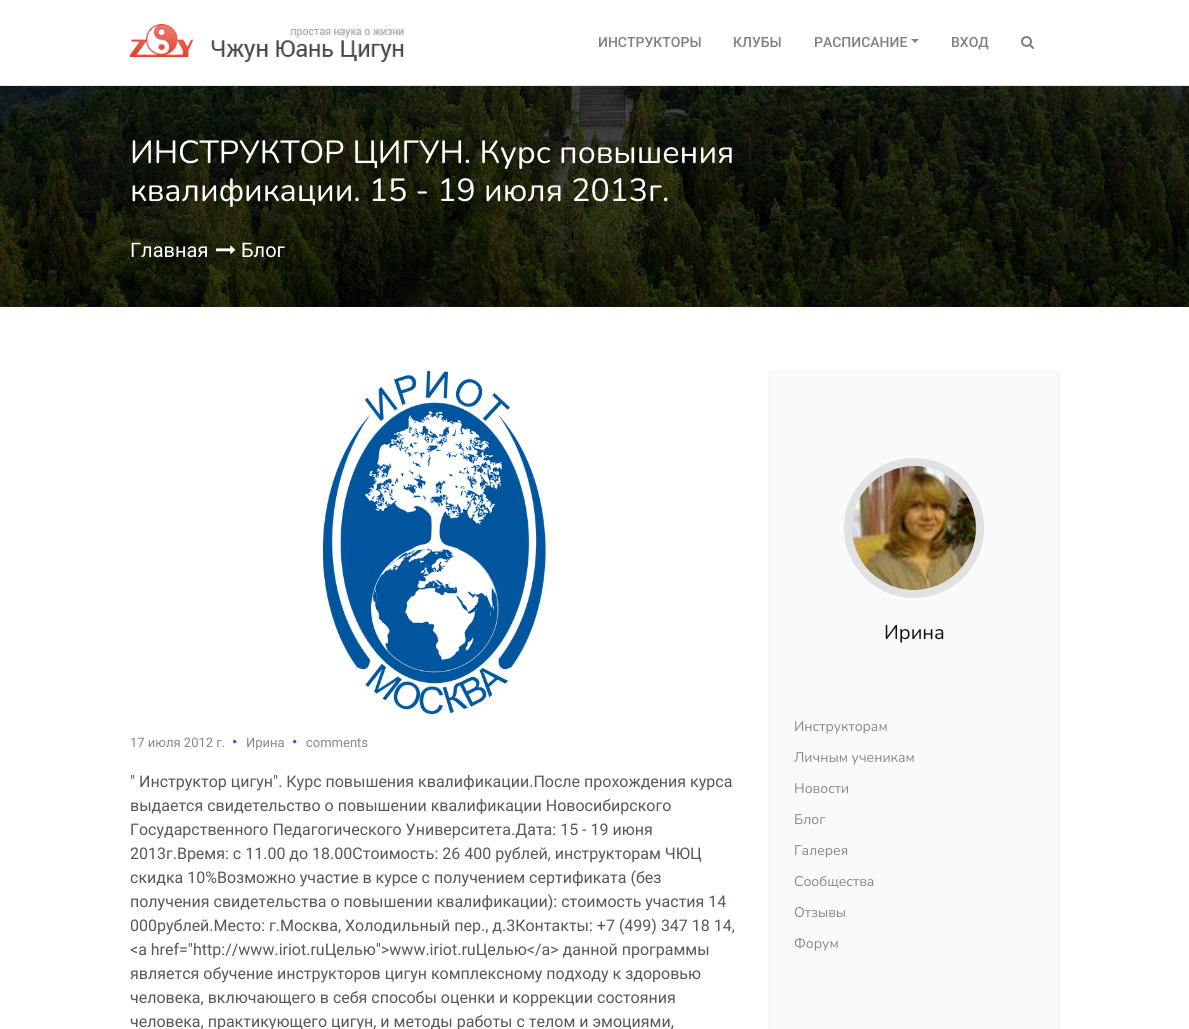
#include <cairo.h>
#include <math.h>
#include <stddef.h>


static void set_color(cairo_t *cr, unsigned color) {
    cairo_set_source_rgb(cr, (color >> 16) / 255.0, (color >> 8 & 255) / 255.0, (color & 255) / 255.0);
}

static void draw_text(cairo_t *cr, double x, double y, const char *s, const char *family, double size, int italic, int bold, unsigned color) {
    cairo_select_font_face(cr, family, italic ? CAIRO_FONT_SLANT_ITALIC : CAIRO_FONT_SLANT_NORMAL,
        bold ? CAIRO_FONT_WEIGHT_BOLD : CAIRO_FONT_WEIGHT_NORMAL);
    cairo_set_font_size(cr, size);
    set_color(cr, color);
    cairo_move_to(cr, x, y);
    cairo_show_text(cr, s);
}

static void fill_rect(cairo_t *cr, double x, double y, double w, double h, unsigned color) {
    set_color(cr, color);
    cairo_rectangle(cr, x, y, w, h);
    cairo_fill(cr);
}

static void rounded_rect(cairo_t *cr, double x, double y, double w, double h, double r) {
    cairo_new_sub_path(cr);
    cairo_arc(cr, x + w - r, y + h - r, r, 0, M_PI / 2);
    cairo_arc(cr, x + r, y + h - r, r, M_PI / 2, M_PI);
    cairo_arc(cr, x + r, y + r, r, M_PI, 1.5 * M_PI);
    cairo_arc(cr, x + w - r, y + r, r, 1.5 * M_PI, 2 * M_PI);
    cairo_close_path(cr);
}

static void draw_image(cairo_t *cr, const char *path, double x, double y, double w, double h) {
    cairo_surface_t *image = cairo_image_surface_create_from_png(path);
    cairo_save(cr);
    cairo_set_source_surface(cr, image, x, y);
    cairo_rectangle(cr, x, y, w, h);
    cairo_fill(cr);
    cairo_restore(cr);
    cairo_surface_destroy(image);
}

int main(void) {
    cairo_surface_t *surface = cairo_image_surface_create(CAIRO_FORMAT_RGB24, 1189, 1029);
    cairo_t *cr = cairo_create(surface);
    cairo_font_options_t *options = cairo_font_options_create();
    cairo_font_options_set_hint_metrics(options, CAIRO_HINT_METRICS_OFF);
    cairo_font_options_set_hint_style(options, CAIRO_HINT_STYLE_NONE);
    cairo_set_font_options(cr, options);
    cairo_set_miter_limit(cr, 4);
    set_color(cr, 0xFFFFFF);
    cairo_paint(cr);
    fill_rect(cr, 0, 85, 1189, 1, 0xE0EDED);
    draw_image(cr, "assets/img1.png", 130, 24, 64, 33);
    draw_image(cr, "assets/img2.png", 211, 29, 193, 33);
    draw_text(cr, 598, 47, "ИНСТРУКТОРЫ", "Roboto Medium", 14, 0, 0, 0x808080);
    draw_text(cr, 733, 47, "КЛУБЫ", "Roboto Medium", 14, 0, 0, 0x808080);
    draw_text(cr, 814, 47, "РАСПИСАНИЕ", "Roboto Medium", 14, 0, 0, 0x808080);
    cairo_new_path(cr);
    cairo_move_to(cr, 911, 39);
    cairo_line_to(cr, 919, 39);
    cairo_line_to(cr, 915, 43);
    cairo_close_path(cr);
    cairo_fill(cr);
    draw_text(cr, 951, 47, "ВХОД", "Roboto Medium", 14, 0, 0, 0x808080);
    draw_image(cr, "assets/img3.png", 1021, 36, 13, 13);
    draw_image(cr, "assets/img4.png", 0, 86, 1189, 221);
    draw_text(cr, 130, 163, "ИНСТРУКТОР ЦИГУН. Курс повышения", "Nunito", 32, 0, 0, 0xFFFFFF);
    draw_text(cr, 130, 201, "квалификации. 15 - 19 июля 2013г.", "Nunito", 32, 0, 0, 0xFFFFFF);
    draw_text(cr, 130, 257, "Главная", "Roboto", 20, 0, 0, 0xFFFFFF);
    draw_image(cr, "assets/img5.png", 216, 245, 20, 10);
    draw_text(cr, 241, 257, "Блог", "Roboto", 20, 0, 0, 0xFFFFFF);
    draw_image(cr, "assets/img6.png", 323, 371, 223, 343);
    draw_text(cr, 130, 747, "17 июля 2012 г.", "Roboto", 13, 0, 0, 0x818A91);
    draw_image(cr, "assets/img7.png", 233, 739, 4, 5);
    draw_text(cr, 246, 747, "Ирина", "Roboto", 13, 0, 0, 0x818A91);
    draw_image(cr, "assets/img7.png", 293, 739, 4, 5);
    draw_text(cr, 306, 747, "comments", "Roboto", 13, 0, 0, 0x818A91);
    draw_text(cr, 130, 787, "\" Инструктор цигун\". Курс повышения квалификации.После прохождения курса", "Roboto", 16, 0, 0, 0x55595C);
    draw_text(cr, 130, 811, "выдается свидетельство о повышении квалификации Новосибирского", "Roboto", 16, 0, 0, 0x55595C);
    draw_text(cr, 130, 835, "Государственного Педагогического Университета.Дата: 15 - 19 июня", "Roboto", 16, 0, 0, 0x55595C);
    draw_text(cr, 130, 859, "2013г.Время: с 11.00 до 18.00Стоимость: 26 400 рублей, инструкторам ЧЮЦ", "Roboto", 16, 0, 0, 0x55595C);
    draw_text(cr, 130, 883, "скидка 10%Возможно участие в курсе с получением сертификата (без", "Roboto", 16, 0, 0, 0x55595C);
    draw_text(cr, 130, 907, "получения свидетельства о повышении квалификации): стоимость участия 14", "Roboto", 16, 0, 0, 0x55595C);
    draw_text(cr, 130, 931, "000рублей.Место: г.Москва, Холодильный пер., д.3Контакты: +7 (499) 347 18 14,", "Roboto", 16, 0, 0, 0x55595C);
    draw_text(cr, 130, 955, "<a href=\"http://www.iriot.ruЦелью\">www.iriot.ruЦелью</a> данной программы", "Roboto", 16, 0, 0, 0x55595C);
    draw_text(cr, 130, 979, "является обучение инструкторов цигун комплексному подходу к здоровью", "Roboto", 16, 0, 0, 0x55595C);
    draw_text(cr, 130, 1003, "человека, включающего в себя способы оценки и коррекции состояния", "Roboto", 16, 0, 0, 0x55595C);
    draw_text(cr, 130, 1027, "человека, практикующего цигун, и методы работы с телом и эмоциями,", "Roboto", 16, 0, 0, 0x55595C);
    set_color(cr, 0xFAFAFA);
    rounded_rect(cr, 769.5, 371.5, 289, 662, 3.5);
    cairo_fill_preserve(cr);
    set_color(cr, 0xF1F1F1);
    cairo_set_line_width(cr, 1);
    cairo_stroke(cr);
    cairo_arc(cr, 914, 528, 66, 0, 2 * M_PI);
    set_color(cr, 0xDFE1E2);
    cairo_set_line_width(cr, 8);
    cairo_stroke(cr);
    draw_image(cr, "assets/img8.png", 852, 466, 124, 124);
    draw_text(cr, 884, 639, "Ирина", "Nunito", 20, 0, 0, 0x111111);
    draw_text(cr, 794, 731, "Инструкторам", "Nunito", 14, 0, 0, 0x818A91);
    draw_text(cr, 794, 762, "Личным ученикам", "Nunito", 14, 0, 0, 0x818A91);
    draw_text(cr, 794, 793, "Новости", "Nunito", 14, 0, 0, 0x818A91);
    draw_text(cr, 794, 824, "Блог", "Nunito", 14, 0, 0, 0x818A91);
    draw_text(cr, 794, 855, "Галерея", "Nunito", 14, 0, 0, 0x818A91);
    draw_text(cr, 794, 886, "Сообщества", "Nunito", 14, 0, 0, 0x818A91);
    draw_text(cr, 794, 917, "Отзывы", "Nunito", 14, 0, 0, 0x818A91);
    draw_text(cr, 794, 948, "Форум", "Nunito", 14, 0, 0, 0x818A91);
    cairo_surface_write_to_png(surface, "output.png");
    cairo_font_options_destroy(options);
    cairo_destroy(cr);
    cairo_surface_destroy(surface);
    return 0;
}
